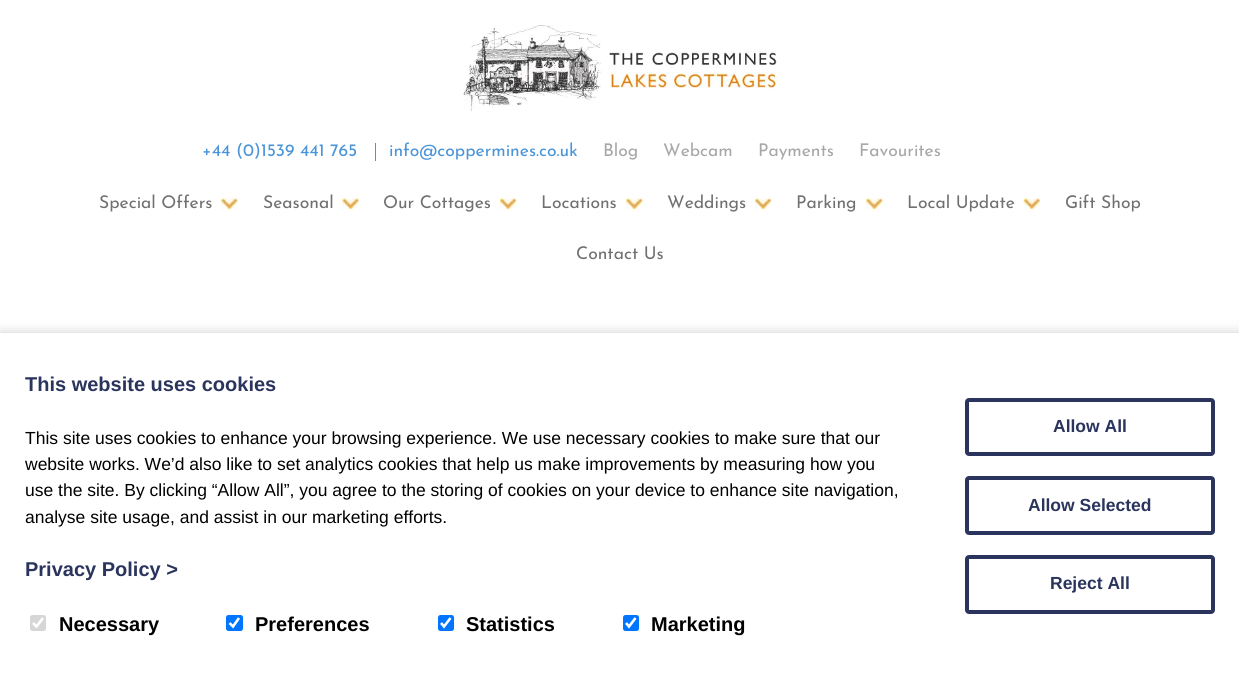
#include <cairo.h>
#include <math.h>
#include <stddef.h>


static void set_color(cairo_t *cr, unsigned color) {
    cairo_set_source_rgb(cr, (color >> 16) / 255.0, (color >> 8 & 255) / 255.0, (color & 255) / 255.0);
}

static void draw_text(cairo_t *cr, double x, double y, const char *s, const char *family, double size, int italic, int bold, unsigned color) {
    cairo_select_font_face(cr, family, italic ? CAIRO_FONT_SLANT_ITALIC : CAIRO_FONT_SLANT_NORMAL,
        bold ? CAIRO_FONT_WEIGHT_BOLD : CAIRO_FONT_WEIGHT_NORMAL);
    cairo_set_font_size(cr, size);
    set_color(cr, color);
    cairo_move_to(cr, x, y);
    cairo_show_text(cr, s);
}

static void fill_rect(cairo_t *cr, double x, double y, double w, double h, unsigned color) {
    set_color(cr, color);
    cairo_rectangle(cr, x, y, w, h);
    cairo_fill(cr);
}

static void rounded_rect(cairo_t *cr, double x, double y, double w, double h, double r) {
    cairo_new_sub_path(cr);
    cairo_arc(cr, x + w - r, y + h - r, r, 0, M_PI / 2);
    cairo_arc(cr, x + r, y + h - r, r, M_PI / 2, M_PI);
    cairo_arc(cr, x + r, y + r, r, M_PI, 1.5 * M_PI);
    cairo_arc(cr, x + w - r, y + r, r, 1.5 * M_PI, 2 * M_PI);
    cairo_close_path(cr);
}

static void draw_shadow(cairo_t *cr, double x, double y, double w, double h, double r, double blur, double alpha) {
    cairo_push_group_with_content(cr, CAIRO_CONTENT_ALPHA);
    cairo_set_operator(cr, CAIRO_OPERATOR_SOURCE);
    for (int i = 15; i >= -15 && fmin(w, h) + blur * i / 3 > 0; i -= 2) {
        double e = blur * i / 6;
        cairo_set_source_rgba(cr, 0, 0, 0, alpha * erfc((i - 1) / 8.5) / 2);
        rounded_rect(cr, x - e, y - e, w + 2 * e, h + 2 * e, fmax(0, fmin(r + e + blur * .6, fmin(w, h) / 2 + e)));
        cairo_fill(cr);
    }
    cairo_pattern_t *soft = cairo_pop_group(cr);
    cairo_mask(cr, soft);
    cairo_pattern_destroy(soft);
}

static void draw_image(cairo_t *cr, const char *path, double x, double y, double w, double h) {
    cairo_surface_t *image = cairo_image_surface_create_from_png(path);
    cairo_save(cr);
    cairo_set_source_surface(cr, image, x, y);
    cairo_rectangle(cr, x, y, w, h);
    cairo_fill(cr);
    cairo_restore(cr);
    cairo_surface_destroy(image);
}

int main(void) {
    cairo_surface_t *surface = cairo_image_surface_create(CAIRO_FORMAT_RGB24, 1239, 677);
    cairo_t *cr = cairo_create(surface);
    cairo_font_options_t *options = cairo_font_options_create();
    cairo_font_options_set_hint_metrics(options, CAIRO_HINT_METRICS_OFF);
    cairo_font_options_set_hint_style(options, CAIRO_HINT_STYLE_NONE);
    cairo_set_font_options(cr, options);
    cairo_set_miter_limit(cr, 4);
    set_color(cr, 0xFFFFFF);
    cairo_paint(cr);
    draw_image(cr, "assets/img1.png", 463, 25, 314, 86);
    draw_text(cr, 202, 156, "+44 (0)1539 441 765", "Josefin Sans", 17.5, 0, 0, 0x4A94D8);
    draw_text(cr, 389, 156, "info@coppermines.co.uk", "Josefin Sans", 17.5, 0, 0, 0x4A94D8);
    fill_rect(cr, 375, 143, 1, 18, 0x4A94D8);
    draw_text(cr, 603, 156, "Blog", "Josefin Sans", 17.5, 0, 0, 0xA7A7A7);
    draw_text(cr, 663, 156, "Webcam", "Josefin Sans", 17.5, 0, 0, 0xA7A7A7);
    draw_text(cr, 758, 156, "Payments", "Josefin Sans", 17.5, 0, 0, 0xA7A7A7);
    draw_text(cr, 859, 156, "Favourites", "Josefin Sans", 17.5, 0, 0, 0xA7A7A7);
    draw_image(cr, "assets/img2.png", 221, 198, 17, 12);
    draw_text(cr, 99, 208, "Special Offers", "Josefin Sans", 17.5, 0, 0, 0x707070);
    draw_image(cr, "assets/img3.png", 342, 198, 17, 12);
    draw_text(cr, 263, 208, "Seasonal", "Josefin Sans", 17.5, 0, 0, 0x707070);
    draw_image(cr, "assets/img4.png", 500, 198, 17, 12);
    draw_text(cr, 383, 208, "Our Cottages", "Josefin Sans", 17.5, 0, 0, 0x707070);
    draw_image(cr, "assets/img2.png", 626, 198, 17, 12);
    draw_text(cr, 541, 208, "Locations", "Josefin Sans", 17.5, 0, 0, 0x707070);
    draw_image(cr, "assets/img4.png", 755, 198, 17, 12);
    draw_text(cr, 667, 208, "Weddings", "Josefin Sans", 17.5, 0, 0, 0x707070);
    draw_image(cr, "assets/img2.png", 866, 198, 17, 12);
    draw_text(cr, 796, 208, "Parking", "Josefin Sans", 17.5, 0, 0, 0x707070);
    draw_image(cr, "assets/img5.png", 1023, 198, 17, 12);
    draw_text(cr, 907, 208, "Local Update", "Josefin Sans", 17.5, 0, 0, 0x707070);
    draw_text(cr, 1065, 208, "Gift Shop", "Josefin Sans", 17.5, 0, 0, 0x707070);
    draw_text(cr, 576, 259, "Contact Us", "Josefin Sans", 17.5, 0, 0, 0x707070);
    set_color(cr, 0x000000);
    draw_shadow(cr, 0, 333, 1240, 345, 0, 6, 0.2);
    fill_rect(cr, 0, 333, 1239, 344, 0xFFFFFF);
    draw_text(cr, 25, 391, "This website uses cookies", "Liberation Sans", 20, 0, 1, 0x2A345D);
    draw_text(cr, 25, 444, "This site uses cookies to enhance your browsing experience. We use necessary cookies to make sure that our", "Liberation Sans", 17.5, 0, 0, 0x000000);
    draw_text(cr, 25, 470, "website works. We’d also like to set analytics cookies that help us make improvements by measuring how you", "Liberation Sans", 17.5, 0, 0, 0x000000);
    draw_text(cr, 25, 496, "use the site. By clicking “Allow All”, you agree to the storing of cookies on your device to enhance site navigation,", "Liberation Sans", 17.5, 0, 0, 0x000000);
    draw_text(cr, 25, 523, "analyse site usage, and assist in our marketing efforts.", "Liberation Sans", 17.5, 0, 0, 0x000000);
    draw_text(cr, 25, 576, "Privacy Policy >", "Liberation Sans", 20, 0, 1, 0x2A345D);
    set_color(cr, 0xD6D6D6);
    rounded_rect(cr, 30, 615, 16, 16, 2.5);
    cairo_fill(cr);
    cairo_new_path(cr);
    cairo_move_to(cr, 33, 623);
    cairo_line_to(cr, 36.5, 626.5);
    cairo_line_to(cr, 43, 618);
    set_color(cr, 0xFFFFFF);
    cairo_set_line_width(cr, 2.6);
    cairo_stroke(cr);
    draw_text(cr, 59, 631, "Necessary", "Liberation Sans", 20, 0, 1, 0x000000);
    set_color(cr, 0x0075FF);
    rounded_rect(cr, 226, 615, 17, 16, 2.5);
    cairo_fill(cr);
    cairo_new_path(cr);
    cairo_move_to(cr, 229.5, 623);
    cairo_line_to(cr, 233, 626.5);
    cairo_line_to(cr, 239, 618);
    set_color(cr, 0xFFFFFF);
    cairo_stroke(cr);
    draw_text(cr, 255, 631, "Preferences", "Liberation Sans", 20, 0, 1, 0x000000);
    set_color(cr, 0x0075FF);
    rounded_rect(cr, 438, 615, 16, 16, 2.5);
    cairo_fill(cr);
    cairo_new_path(cr);
    cairo_move_to(cr, 441, 623);
    cairo_line_to(cr, 444, 626.5);
    cairo_line_to(cr, 450.5, 618);
    set_color(cr, 0xFFFFFF);
    cairo_stroke(cr);
    draw_text(cr, 466, 631, "Statistics", "Liberation Sans", 20, 0, 1, 0x000000);
    set_color(cr, 0x0075FF);
    rounded_rect(cr, 623, 615, 16, 16, 2.5);
    cairo_fill(cr);
    cairo_new_path(cr);
    cairo_move_to(cr, 626, 623);
    cairo_line_to(cr, 629, 626.5);
    cairo_line_to(cr, 635.5, 618);
    set_color(cr, 0xFFFFFF);
    cairo_stroke(cr);
    draw_text(cr, 651, 631, "Marketing", "Liberation Sans", 20, 0, 1, 0x000000);
    rounded_rect(cr, 967, 400, 246, 54, 2);
    set_color(cr, 0x2A345D);
    cairo_set_line_width(cr, 4);
    cairo_stroke(cr);
    draw_text(cr, 1053, 432, "Allow All", "Liberation Sans", 17.5, 0, 1, 0x2A345D);
    rounded_rect(cr, 967, 478, 246, 55, 2);
    cairo_stroke(cr);
    draw_text(cr, 1028, 511, "Allow Selected", "Liberation Sans", 17.5, 0, 1, 0x2A345D);
    rounded_rect(cr, 967, 557, 246, 55, 2);
    cairo_stroke(cr);
    draw_text(cr, 1050, 589, "Reject All", "Liberation Sans", 17.5, 0, 1, 0x2A345D);
    cairo_surface_write_to_png(surface, "output.png");
    cairo_font_options_destroy(options);
    cairo_destroy(cr);
    cairo_surface_destroy(surface);
    return 0;
}
